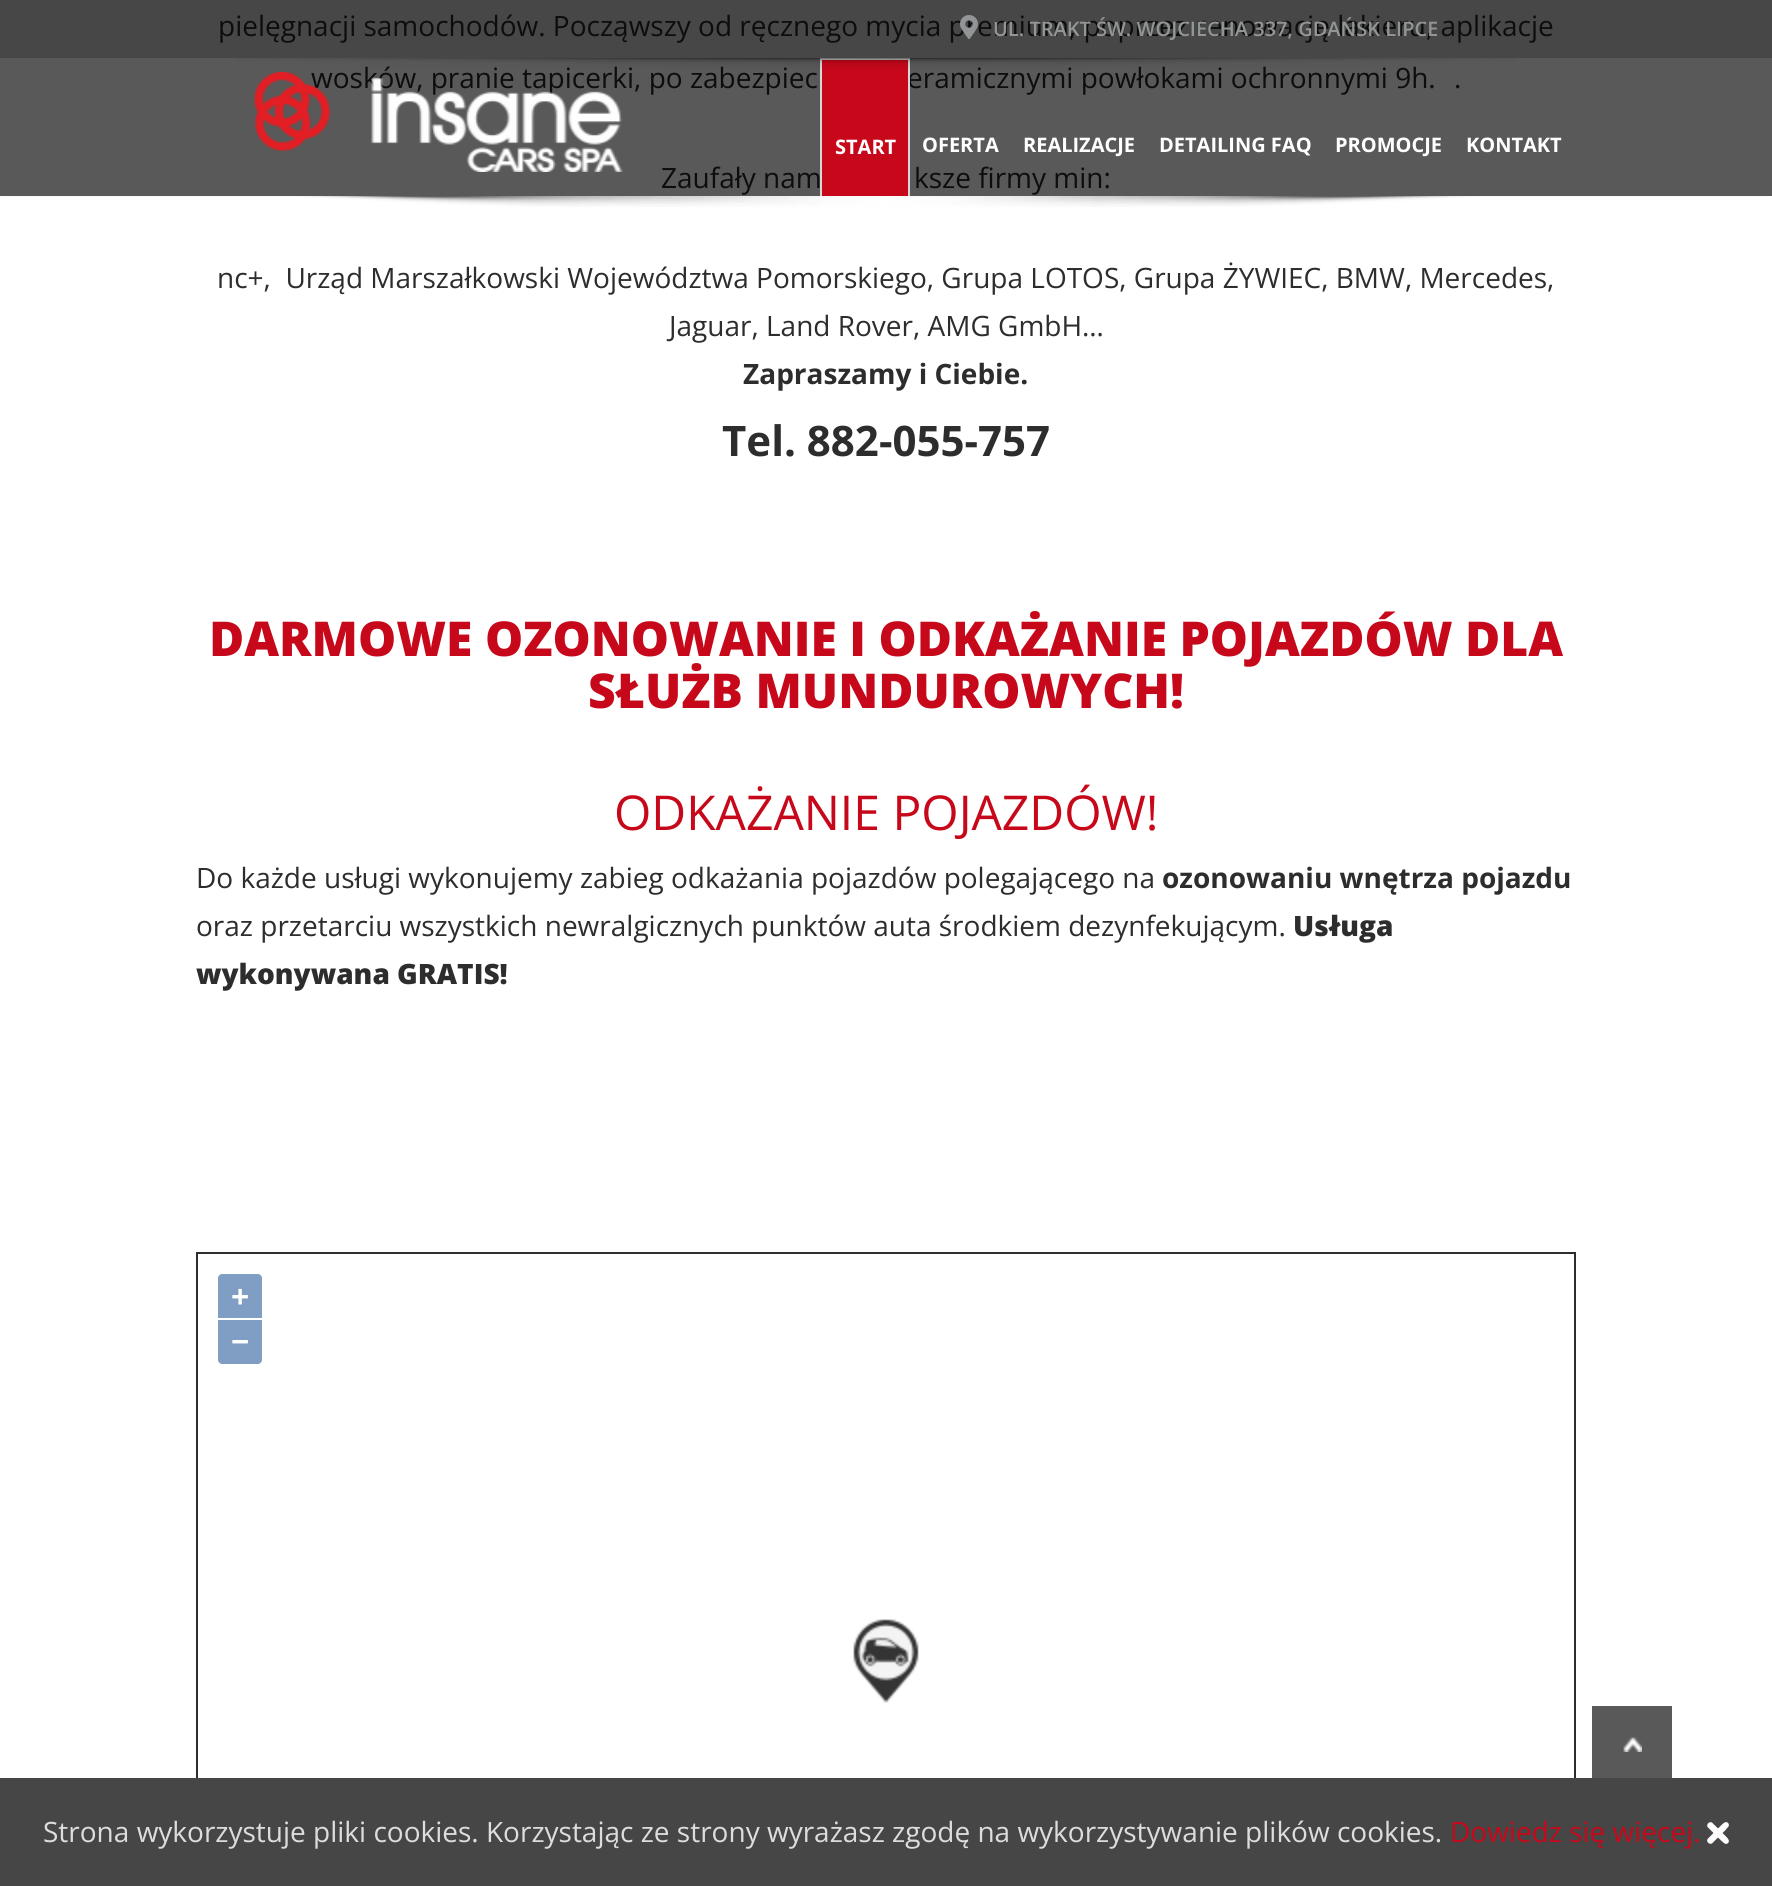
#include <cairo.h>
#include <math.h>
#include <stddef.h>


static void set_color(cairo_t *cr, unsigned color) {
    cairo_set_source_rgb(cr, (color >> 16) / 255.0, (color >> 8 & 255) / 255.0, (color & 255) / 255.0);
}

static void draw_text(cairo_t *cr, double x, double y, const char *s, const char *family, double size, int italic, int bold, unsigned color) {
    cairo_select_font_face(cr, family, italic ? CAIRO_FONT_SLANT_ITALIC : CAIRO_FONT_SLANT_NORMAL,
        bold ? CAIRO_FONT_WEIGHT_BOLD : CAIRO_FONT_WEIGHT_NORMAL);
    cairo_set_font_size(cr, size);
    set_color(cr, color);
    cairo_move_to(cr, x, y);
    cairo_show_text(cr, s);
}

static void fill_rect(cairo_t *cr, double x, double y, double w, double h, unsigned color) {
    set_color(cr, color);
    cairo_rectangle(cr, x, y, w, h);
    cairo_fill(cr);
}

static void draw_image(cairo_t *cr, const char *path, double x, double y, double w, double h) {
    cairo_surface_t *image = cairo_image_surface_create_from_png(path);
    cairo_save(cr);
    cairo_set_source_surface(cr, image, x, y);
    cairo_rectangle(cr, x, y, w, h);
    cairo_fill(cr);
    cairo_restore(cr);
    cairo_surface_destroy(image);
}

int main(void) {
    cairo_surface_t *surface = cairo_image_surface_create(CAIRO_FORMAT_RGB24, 1772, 1886);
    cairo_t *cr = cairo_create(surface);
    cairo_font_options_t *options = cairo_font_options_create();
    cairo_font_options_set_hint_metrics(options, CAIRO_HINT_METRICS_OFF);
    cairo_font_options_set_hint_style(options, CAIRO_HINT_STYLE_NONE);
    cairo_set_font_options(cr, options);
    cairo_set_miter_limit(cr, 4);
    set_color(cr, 0xFFFFFF);
    cairo_paint(cr);
    fill_rect(cr, 0, 58, 1772, 138, 0x595959);
    fill_rect(cr, 0, 0, 1772, 58, 0x474747);
    draw_text(cr, 218, 36, "pielęgnacji samochodów. Począwszy od ręcznego mycia premium, poprzez renowację lakieru, aplikacje", "Open Sans", 28, 0, 0, 0x0D0D0D);
    draw_text(cr, 311, 88, "wosków, pranie tapicerki, po zabezpiec", "Open Sans", 28, 0, 0, 0x0D0D0D);
    draw_text(cr, 907, 88, "eramicznymi powłokami ochronnymi 9h.", "Open Sans", 28, 0, 0, 0x0D0D0D);
    draw_text(cr, 1454, 88, ".", "Open Sans", 28, 0, 0, 0x0D0D0D);
    draw_text(cr, 661, 188, "Zaufały nam", "Open Sans", 28, 0, 0, 0x0D0D0D);
    draw_text(cr, 914, 188, "ksze firmy min:", "Open Sans", 28, 0, 0, 0x0D0D0D);
    draw_text(cr, 217, 288, "nc+,  Urząd Marszałkowski Województwa Pomorskiego, Grupa LOTOS, Grupa ŻYWIEC, BMW, Mercedes,", "Open Sans", 28, 0, 0, 0x2D2D2D);
    draw_text(cr, 669, 336, "Jaguar, Land Rover, AMG GmbH…", "Open Sans", 28, 0, 0, 0x2D2D2D);
    draw_text(cr, 743, 384, "Zapraszamy i Ciebie.", "Open Sans", 28, 0, 1, 0x2D2D2D);
    draw_text(cr, 722, 456, "Tel. 882-055-757", "Open Sans", 42, 0, 1, 0x2D2D2D);
    draw_text(cr, 209, 656, "DARMOWE OZONOWANIE I ODKAŻANIE POJAZDÓW DLA", "Open Sans ExtraBold", 48, 0, 0, 0xC7081B);
    draw_text(cr, 588, 708, "SŁUŻB MUNDUROWYCH!", "Open Sans ExtraBold", 48, 0, 0, 0xC7081B);
    draw_text(cr, 614, 830, "ODKAŻANIE POJAZDÓW!", "Open Sans", 48, 0, 0, 0xC7081B);
    draw_text(cr, 196, 888, "Do każde usługi wykonujemy zabieg odkażania pojazdów polegającego na", "Open Sans", 28, 0, 0, 0x2D2D2D);
    draw_text(cr, 1162, 888, "ozonowaniu wnętrza pojazdu", "Open Sans", 28, 0, 1, 0x2D2D2D);
    draw_text(cr, 196, 936, "oraz przetarciu wszystkich newralgicznych punktów auta środkiem dezynfekującym.", "Open Sans", 28, 0, 0, 0x2D2D2D);
    draw_text(cr, 1293, 936, "Usługa", "Open Sans ExtraBold", 28, 0, 0, 0x2D2D2D);
    draw_text(cr, 196, 984, "wykonywana GRATIS!", "Open Sans ExtraBold", 28, 0, 0, 0x2D2D2D);
    cairo_rectangle(cr, 197, 1253, 1378, 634);
    cairo_stroke(cr);
    set_color(cr, 0x809EC4);
    cairo_new_path(cr);
    cairo_move_to(cr, 222, 1274);
    cairo_line_to(cr, 258, 1274);
    cairo_curve_to(cr, 260, 1274, 262, 1276, 262, 1278);
    cairo_line_to(cr, 262, 1318);
    cairo_line_to(cr, 218, 1318);
    cairo_line_to(cr, 218, 1278);
    cairo_curve_to(cr, 218, 1276, 220, 1274, 222, 1274);
    cairo_close_path(cr);
    cairo_fill(cr);
    draw_text(cr, 231, 1308, "+", "Open Sans", 32, 0, 1, 0xFFFFFF);
    set_color(cr, 0x809EC4);
    cairo_new_path(cr);
    cairo_move_to(cr, 218, 1320);
    cairo_line_to(cr, 262, 1320);
    cairo_line_to(cr, 262, 1360);
    cairo_curve_to(cr, 262, 1362, 260, 1364, 258, 1364);
    cairo_line_to(cr, 222, 1364);
    cairo_curve_to(cr, 220, 1364, 218, 1362, 218, 1360);
    cairo_close_path(cr);
    cairo_fill(cr);
    draw_text(cr, 231, 1353, "−", "Open Sans", 32, 0, 1, 0xFFFFFF);
    draw_image(cr, "assets/img1.png", 853, 1619, 66, 84);
    draw_image(cr, "assets/img2.png", 960, 15, 18, 24);
    draw_text(cr, 993, 36, "UL. TRAKT ŚW. WOJCIECHA 337, GDAŃSK LIPCE", "Open Sans SemiBold", 20, 0, 0, 0x929596);
    fill_rect(cr, 822, 60, 86, 136, 0xC7081B);
    fill_rect(cr, 820, 58, 90, 2, 0xD8D8D8);
    fill_rect(cr, 908, 58, 2, 138, 0xD8D8D8);
    fill_rect(cr, 820, 58, 2, 138, 0xD8D8D8);
    draw_image(cr, "assets/img3.png", 235, 58, 1281, 11);
    draw_image(cr, "assets/img4.png", 254, 72, 369, 100);
    draw_text(cr, 835, 154, "START", "Open Sans", 20, 0, 1, 0xFFFFFF);
    draw_text(cr, 922, 152, "OFERTA", "Open Sans", 20, 0, 1, 0xFFFFFF);
    draw_text(cr, 1023, 152, "REALIZACJE", "Open Sans", 20, 0, 1, 0xFFFFFF);
    draw_text(cr, 1159, 152, "DETAILING FAQ", "Open Sans", 20, 0, 1, 0xFFFFFF);
    draw_text(cr, 1335, 152, "PROMOCJE", "Open Sans", 20, 0, 1, 0xFFFFFF);
    draw_text(cr, 1466, 152, "KONTAKT", "Open Sans", 20, 0, 1, 0xFFFFFF);
    draw_image(cr, "assets/img5.png", 1, 196, 1770, 11);
    fill_rect(cr, 1592, 1706, 80, 72, 0x595959);
    draw_image(cr, "assets/img6.png", 1623, 1737, 19, 15);
    fill_rect(cr, 0, 1778, 1772, 108, 0x464646);
    draw_text(cr, 43, 1842, "Strona wykorzystuje pliki cookies. Korzystając ze strony wyrażasz zgodę na wykorzystywanie plików cookies.", "Open Sans", 28, 0, 0, 0xDDDDDD);
    draw_text(cr, 1450, 1842, "Dowiedz się więcej.", "Open Sans", 28, 0, 0, 0xC7081B);
    set_color(cr, 0xFFFFFF);
    cairo_new_path(cr);
    cairo_move_to(cr, 1712.5, 1823);
    cairo_line_to(cr, 1725.5, 1836);
    cairo_curve_to(cr, 1727, 1837.5, 1731, 1841, 1727.5, 1843.5);
    cairo_curve_to(cr, 1726.5, 1844, 1725.5, 1844, 1724.5, 1843.5);
    cairo_line_to(cr, 1721, 1840.5);
    cairo_line_to(cr, 1707.5, 1827);
    cairo_curve_to(cr, 1706, 1824, 1710, 1820.5, 1712.5, 1823);
    cairo_close_path(cr);
    cairo_fill(cr);
    cairo_new_path(cr);
    cairo_move_to(cr, 1708, 1838.5);
    cairo_line_to(cr, 1721, 1825.5);
    cairo_curve_to(cr, 1722.5, 1824, 1726, 1820, 1728.5, 1823.5);
    cairo_curve_to(cr, 1729, 1824.5, 1729, 1825.5, 1728.5, 1826.5);
    cairo_line_to(cr, 1725.5, 1830);
    cairo_line_to(cr, 1712, 1843.5);
    cairo_curve_to(cr, 1709, 1845, 1705.5, 1841, 1708, 1838.5);
    cairo_close_path(cr);
    cairo_fill(cr);
    cairo_surface_write_to_png(surface, "output.png");
    cairo_font_options_destroy(options);
    cairo_destroy(cr);
    cairo_surface_destroy(surface);
    return 0;
}
